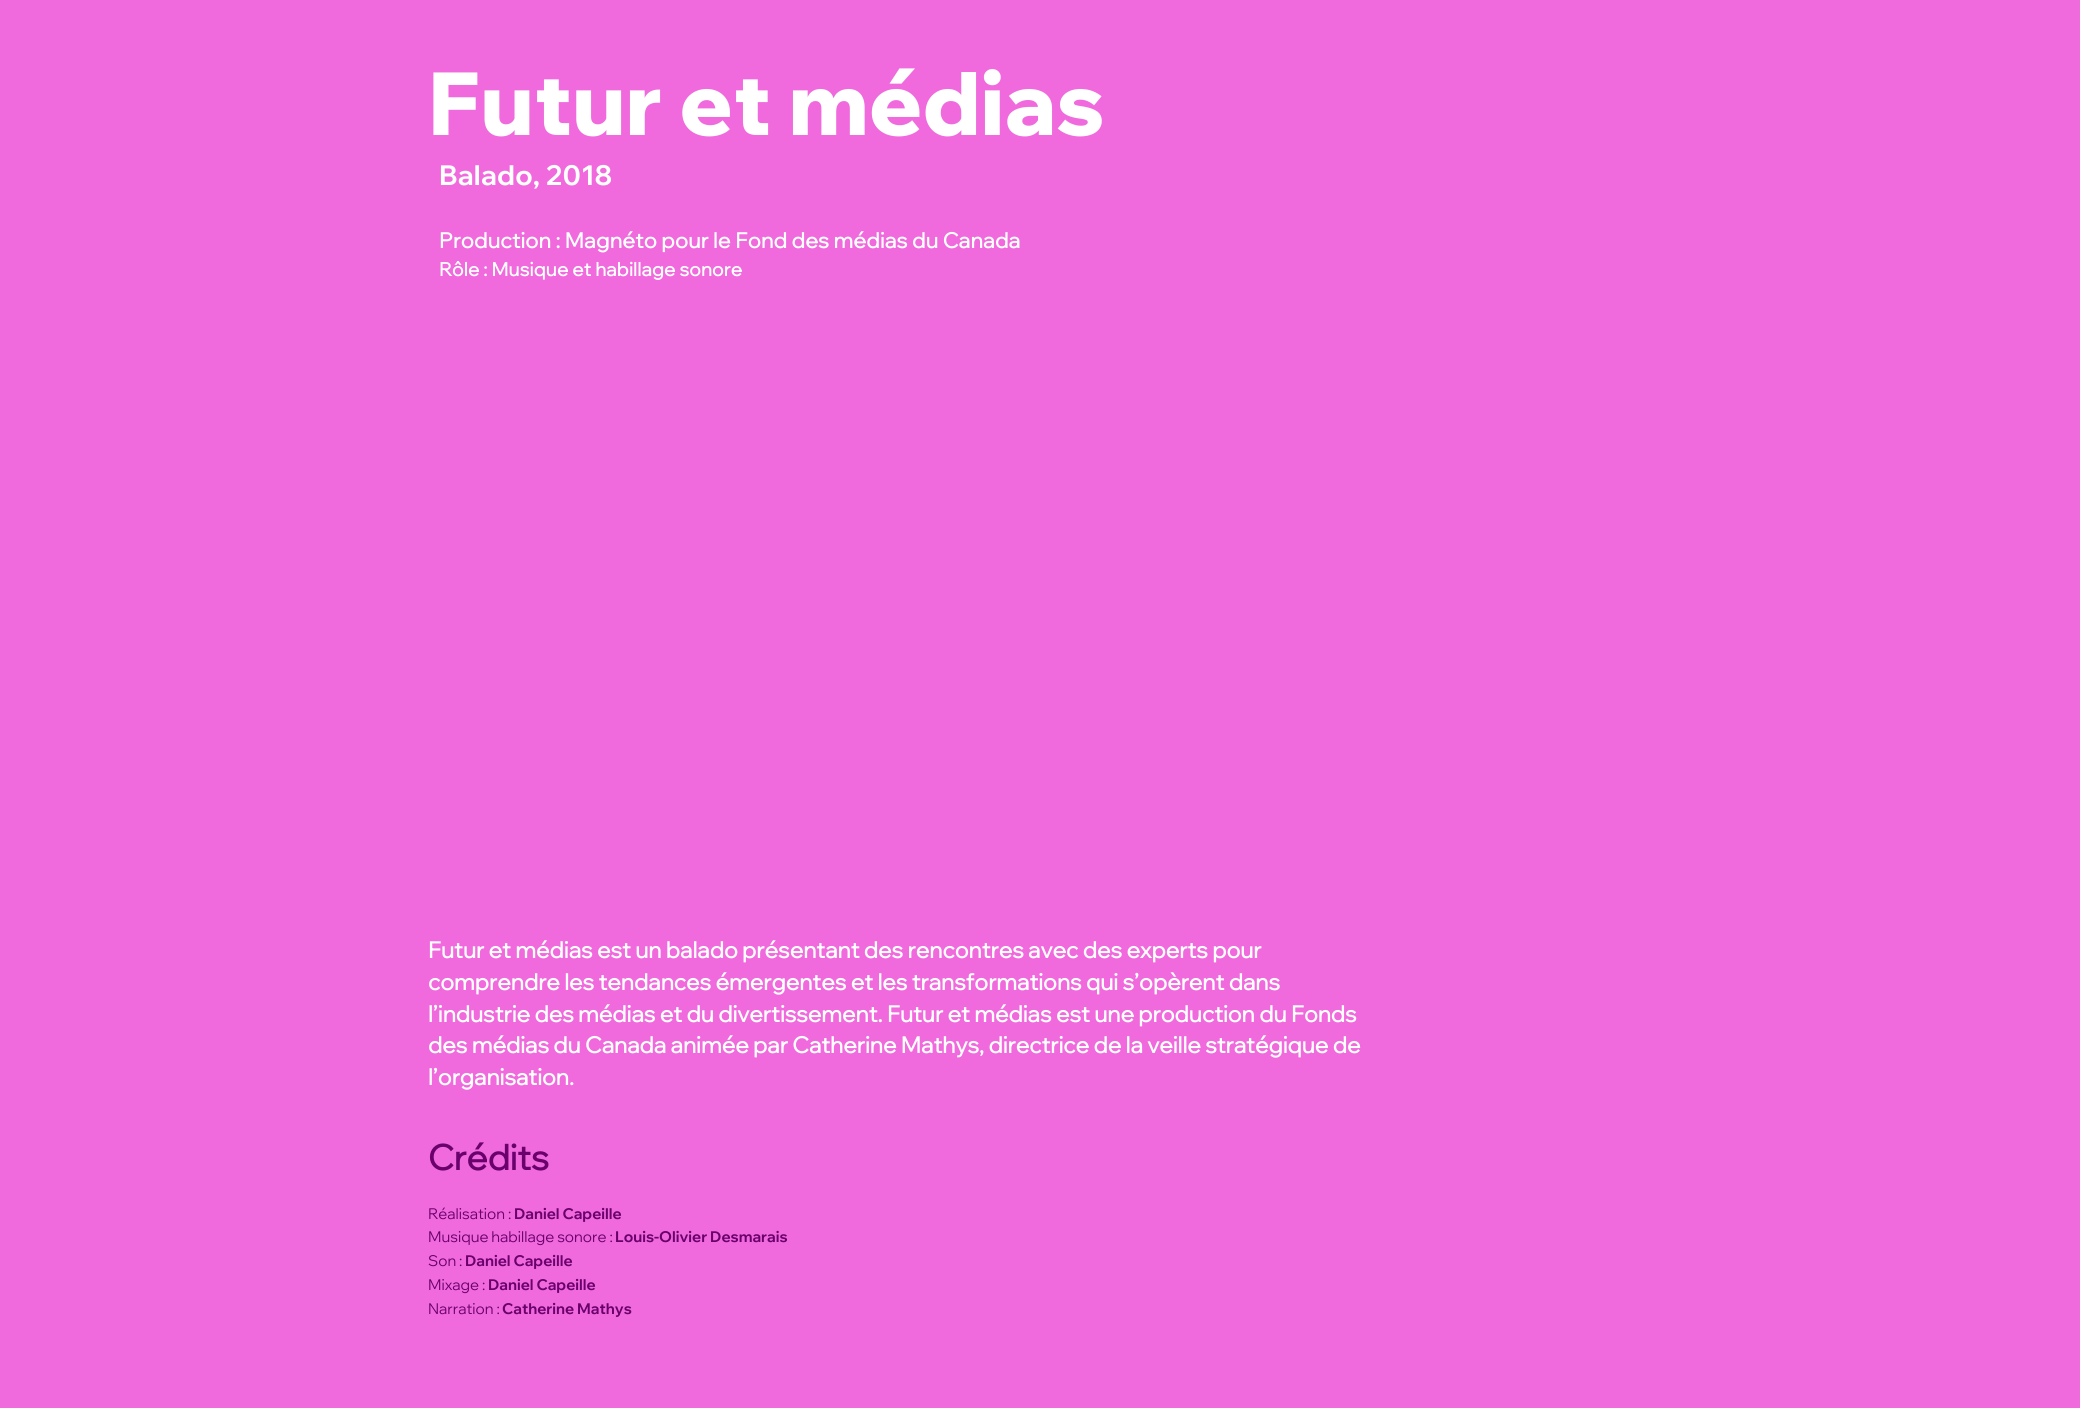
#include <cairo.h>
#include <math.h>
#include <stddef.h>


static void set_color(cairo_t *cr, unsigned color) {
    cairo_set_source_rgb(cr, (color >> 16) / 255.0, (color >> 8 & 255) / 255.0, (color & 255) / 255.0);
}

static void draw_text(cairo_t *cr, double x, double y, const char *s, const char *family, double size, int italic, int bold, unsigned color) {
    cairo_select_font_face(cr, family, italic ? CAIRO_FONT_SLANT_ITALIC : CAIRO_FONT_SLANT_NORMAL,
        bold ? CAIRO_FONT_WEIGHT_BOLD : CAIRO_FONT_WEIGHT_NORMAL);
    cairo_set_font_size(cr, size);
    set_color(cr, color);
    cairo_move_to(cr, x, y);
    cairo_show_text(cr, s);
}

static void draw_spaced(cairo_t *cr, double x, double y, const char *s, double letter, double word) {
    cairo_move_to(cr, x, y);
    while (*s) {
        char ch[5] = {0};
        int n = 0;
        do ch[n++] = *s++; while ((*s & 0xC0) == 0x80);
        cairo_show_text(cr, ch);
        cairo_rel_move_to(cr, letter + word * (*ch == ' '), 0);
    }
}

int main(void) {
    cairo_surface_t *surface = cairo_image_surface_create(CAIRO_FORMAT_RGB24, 2080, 1408);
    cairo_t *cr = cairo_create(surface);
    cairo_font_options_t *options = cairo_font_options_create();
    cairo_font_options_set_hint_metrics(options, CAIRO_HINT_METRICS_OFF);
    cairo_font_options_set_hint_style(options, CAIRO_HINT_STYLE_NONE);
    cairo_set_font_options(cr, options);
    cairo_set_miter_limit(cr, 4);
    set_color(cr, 0xF06ADD);
    cairo_paint(cr);
    draw_text(cr, 428, 135, "Futur et médias", "Wix Madefor Display ExtraBold", 87.5, 0, 0, 0xFFFFFF);
    cairo_select_font_face(cr, "Wix Madefor Display", CAIRO_FONT_SLANT_NORMAL, CAIRO_FONT_WEIGHT_BOLD);
    cairo_set_font_size(cr, 27.5);
    draw_spaced(cr, 439, 185, "Balado, 2018", 0.25, 0);
    cairo_select_font_face(cr, "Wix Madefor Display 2", CAIRO_FONT_SLANT_NORMAL, CAIRO_FONT_WEIGHT_BOLD);
    cairo_set_font_size(cr, 21.25);
    draw_spaced(cr, 439, 248, "Production : Magnéto pour le Fond des médias du Canada", 0.2, 0);
    cairo_set_font_size(cr, 18.75);
    draw_spaced(cr, 439, 276, "Rôle : Musique et habillage sonore", 0.2, 0);
    draw_text(cr, 428, 958, "Futur et médias est un balado présentant des rencontres avec des experts pour", "Wix Madefor Display 2", 22.5, 0, 1, 0xFFFFFF);
    draw_text(cr, 428, 990, "comprendre les tendances émergentes et les transformations qui s’opèrent dans", "Wix Madefor Display 2", 22.5, 0, 1, 0xFFFFFF);
    draw_text(cr, 428, 1022, "l’industrie des médias et du divertissement. Futur et médias est une production du Fonds", "Wix Madefor Display 2", 22.5, 0, 1, 0xFFFFFF);
    draw_text(cr, 428, 1053, "des médias du Canada animée par Catherine Mathys, directrice de la veille stratégique de", "Wix Madefor Display 2", 22.5, 0, 1, 0xFFFFFF);
    draw_text(cr, 428, 1085, "l’organisation.", "Wix Madefor Display 2", 22.5, 0, 1, 0xFFFFFF);
    draw_text(cr, 428, 1170, "Crédits", "Wix Madefor Display 2", 35, 0, 1, 0x69006C);
    draw_text(cr, 428, 1219, "Réalisation :", "Wix Madefor Display", 15, 0, 0, 0x69006C);
    draw_text(cr, 514, 1219, "Daniel Capeille", "Wix Madefor Display", 15, 0, 1, 0x69006C);
    draw_text(cr, 428, 1242, "Musique habillage sonore :", "Wix Madefor Display", 15, 0, 0, 0x69006C);
    draw_text(cr, 615, 1242, "Louis-Olivier Desmarais", "Wix Madefor Display", 15, 0, 1, 0x69006C);
    draw_text(cr, 428, 1266, "Son :", "Wix Madefor Display", 15, 0, 0, 0x69006C);
    draw_text(cr, 465, 1266, "Daniel Capeille", "Wix Madefor Display", 15, 0, 1, 0x69006C);
    draw_text(cr, 428, 1290, "Mixage :", "Wix Madefor Display", 15, 0, 0, 0x69006C);
    draw_text(cr, 488, 1290, "Daniel Capeille", "Wix Madefor Display", 15, 0, 1, 0x69006C);
    draw_text(cr, 428, 1314, "Narration :", "Wix Madefor Display", 15, 0, 0, 0x69006C);
    draw_text(cr, 502, 1314, "Catherine Mathys", "Wix Madefor Display", 15, 0, 1, 0x69006C);
    cairo_surface_write_to_png(surface, "output.png");
    cairo_font_options_destroy(options);
    cairo_destroy(cr);
    cairo_surface_destroy(surface);
    return 0;
}
